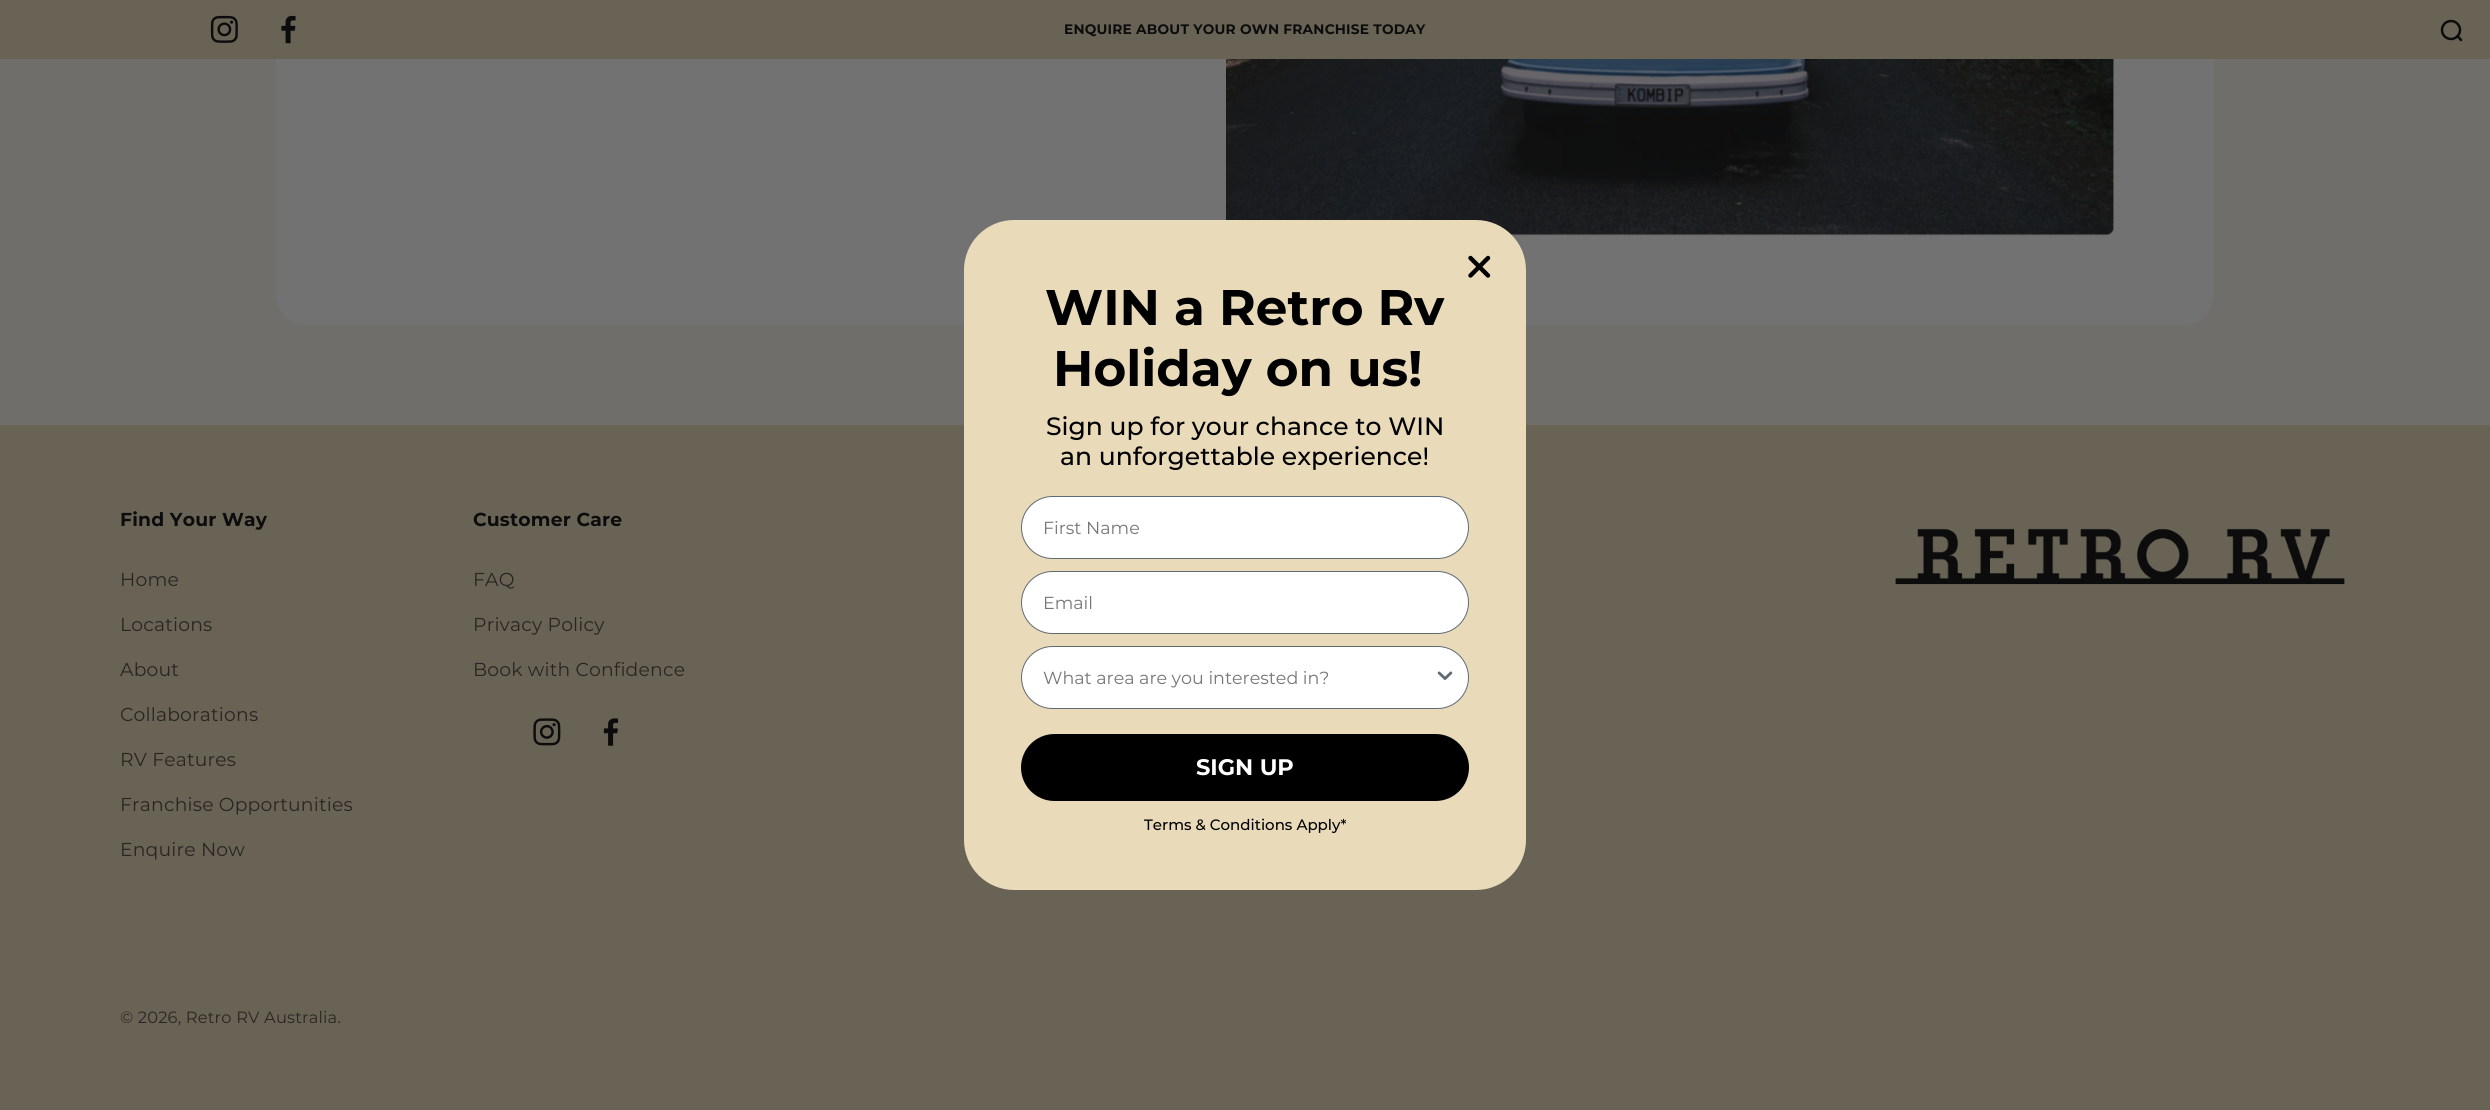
#include <cairo.h>
#include <math.h>
#include <stddef.h>


static void set_color(cairo_t *cr, unsigned color) {
    cairo_set_source_rgb(cr, (color >> 16) / 255.0, (color >> 8 & 255) / 255.0, (color & 255) / 255.0);
}

static void draw_text(cairo_t *cr, double x, double y, const char *s, const char *family, double size, int italic, int bold, unsigned color) {
    cairo_select_font_face(cr, family, italic ? CAIRO_FONT_SLANT_ITALIC : CAIRO_FONT_SLANT_NORMAL,
        bold ? CAIRO_FONT_WEIGHT_BOLD : CAIRO_FONT_WEIGHT_NORMAL);
    cairo_set_font_size(cr, size);
    set_color(cr, color);
    cairo_move_to(cr, x, y);
    cairo_show_text(cr, s);
}

static void draw_spaced(cairo_t *cr, double x, double y, const char *s, double letter, double word) {
    cairo_move_to(cr, x, y);
    while (*s) {
        char ch[5] = {0};
        int n = 0;
        do ch[n++] = *s++; while ((*s & 0xC0) == 0x80);
        cairo_show_text(cr, ch);
        cairo_rel_move_to(cr, letter + word * (*ch == ' '), 0);
    }
}

static void fill_rect(cairo_t *cr, double x, double y, double w, double h, unsigned color) {
    set_color(cr, color);
    cairo_rectangle(cr, x, y, w, h);
    cairo_fill(cr);
}

static void rounded_rect(cairo_t *cr, double x, double y, double w, double h, double r) {
    cairo_new_sub_path(cr);
    cairo_arc(cr, x + w - r, y + h - r, r, 0, M_PI / 2);
    cairo_arc(cr, x + r, y + h - r, r, M_PI / 2, M_PI);
    cairo_arc(cr, x + r, y + r, r, M_PI, 1.5 * M_PI);
    cairo_arc(cr, x + w - r, y + r, r, 1.5 * M_PI, 2 * M_PI);
    cairo_close_path(cr);
}

static void draw_image(cairo_t *cr, const char *path, double x, double y, double w, double h) {
    cairo_surface_t *image = cairo_image_surface_create_from_png(path);
    cairo_save(cr);
    cairo_set_source_surface(cr, image, x, y);
    cairo_rectangle(cr, x, y, w, h);
    cairo_fill(cr);
    cairo_restore(cr);
    cairo_surface_destroy(image);
}

int main(void) {
    cairo_surface_t *surface = cairo_image_surface_create(CAIRO_FORMAT_RGB24, 2490, 1110);
    cairo_t *cr = cairo_create(surface);
    cairo_font_options_t *options = cairo_font_options_create();
    cairo_font_options_set_hint_metrics(options, CAIRO_HINT_METRICS_OFF);
    cairo_font_options_set_hint_style(options, CAIRO_HINT_STYLE_NONE);
    cairo_set_font_options(cr, options);
    cairo_set_miter_limit(cr, 4);
    set_color(cr, 0x706E6A);
    cairo_paint(cr);
    set_color(cr, 0x727272);
    rounded_rect(cr, 276, -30, 1938, 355, 30);
    cairo_fill(cr);
    draw_image(cr, "assets/img1.png", 1226, 59, 888, 177);
    fill_rect(cr, 0, 0, 2490, 59, 0x696356);
    draw_image(cr, "assets/img2.png", 210, 15, 28, 28);
    draw_image(cr, "assets/img3.png", 281, 15, 15, 29);
    cairo_select_font_face(cr, "Montserrat", CAIRO_FONT_SLANT_NORMAL, CAIRO_FONT_WEIGHT_BOLD);
    cairo_set_font_size(cr, 13.75);
    set_color(cr, 0x0C0C0C);
    draw_spaced(cr, 1064, 34, "ENQUIRE ABOUT YOUR OWN FRANCHISE TODAY", 0.2, 0);
    cairo_new_path(cr);
    cairo_arc(cr, 2451, 30, 9, 0, 2 * M_PI);
    cairo_set_line_width(cr, 2.5);
    cairo_stroke(cr);
    cairo_new_path(cr);
    cairo_move_to(cr, 2457.5, 36);
    cairo_line_to(cr, 2461, 40);
    cairo_set_line_cap(cr, CAIRO_LINE_CAP_ROUND);
    cairo_set_line_join(cr, CAIRO_LINE_JOIN_ROUND);
    cairo_stroke(cr);
    fill_rect(cr, 0, 425, 2490, 685, 0x696356);
    cairo_set_font_size(cr, 18.75);
    set_color(cr, 0x0C0C0C);
    draw_spaced(cr, 120, 526, "Find Your Way", 0.2, 0);
    cairo_select_font_face(cr, "Montserrat", CAIRO_FONT_SLANT_NORMAL, CAIRO_FONT_WEIGHT_NORMAL);
    set_color(cr, 0x282622);
    draw_spaced(cr, 120, 586, "Home", 0.2, 0);
    draw_spaced(cr, 120, 631, "Locations", 0.2, 0);
    draw_spaced(cr, 120, 676, "About", 0.2, 0);
    draw_spaced(cr, 120, 721, "Collaborations", 0.2, 0);
    draw_spaced(cr, 120, 766, "RV Features", 0.2, 0);
    draw_spaced(cr, 120, 811, "Franchise Opportunities", 0.2, 0);
    draw_spaced(cr, 120, 856, "Enquire Now", 0.2, 0);
    cairo_select_font_face(cr, "Montserrat", CAIRO_FONT_SLANT_NORMAL, CAIRO_FONT_WEIGHT_BOLD);
    set_color(cr, 0x0C0C0C);
    draw_spaced(cr, 473, 526, "Customer Care", 0.2, 0);
    cairo_select_font_face(cr, "Montserrat", CAIRO_FONT_SLANT_NORMAL, CAIRO_FONT_WEIGHT_NORMAL);
    set_color(cr, 0x282622);
    draw_spaced(cr, 473, 586, "FAQ", 0.2, 0);
    draw_spaced(cr, 473, 631, "Privacy Policy", 0.2, 0);
    draw_spaced(cr, 473, 676, "Book with Confidence", 0.2, 0);
    draw_image(cr, "assets/img4.png", 533, 718, 28, 28);
    draw_image(cr, "assets/img5.png", 603, 718, 16, 28);
    draw_image(cr, "assets/img6.png", 1895, 528, 450, 57);
    cairo_set_font_size(cr, 16.25);
    draw_spaced(cr, 120, 1023, "© 2026, Retro RV Australia.", 0.2, 0);
    set_color(cr, 0xE9DAB9);
    rounded_rect(cr, 964, 220, 562, 670, 50);
    cairo_fill(cr);
    cairo_new_path(cr);
    cairo_move_to(cr, 1470.5, 258);
    cairo_line_to(cr, 1488, 275.5);
    cairo_move_to(cr, 1470.5, 275.5);
    cairo_line_to(cr, 1488, 258);
    cairo_close_path(cr);
    set_color(cr, 0x000000);
    cairo_set_line_width(cr, 4.4);
    cairo_stroke(cr);
    draw_text(cr, 1045, 325, "WIN a Retro Rv", "Montserrat", 50, 0, 1, 0x000000);
    draw_text(cr, 1053, 386, "Holiday on us!", "Montserrat", 50, 0, 1, 0x000000);
    draw_text(cr, 1046, 435, "Sign up for your chance to WIN", "Montserrat Medium", 25, 0, 0, 0x000000);
    draw_text(cr, 1060, 465, "an unforgettable experience!", "Montserrat Medium", 25, 0, 0, 0x000000);
    set_color(cr, 0xFFFFFF);
    rounded_rect(cr, 1021.5, 496.5, 447, 62, 31);
    cairo_fill_preserve(cr);
    set_color(cr, 0x606A72);
    cairo_set_line_width(cr, 1);
    cairo_set_line_cap(cr, CAIRO_LINE_CAP_BUTT);
    cairo_set_line_join(cr, CAIRO_LINE_JOIN_MITER);
    cairo_stroke(cr);
    draw_text(cr, 1043, 534, "First Name", "Montserrat", 17.5, 0, 0, 0x767676);
    set_color(cr, 0xFFFFFF);
    rounded_rect(cr, 1021.5, 571.5, 447, 62, 31);
    cairo_fill_preserve(cr);
    set_color(cr, 0x606A72);
    cairo_stroke(cr);
    draw_text(cr, 1043, 609, "Email", "Montserrat", 17.5, 0, 0, 0x767676);
    set_color(cr, 0xFFFFFF);
    rounded_rect(cr, 1021.5, 646.5, 447, 62, 31);
    cairo_fill_preserve(cr);
    set_color(cr, 0x606A72);
    cairo_stroke(cr);
    draw_text(cr, 1043, 684, "What area are you interested in?", "Montserrat", 17.5, 0, 0, 0x767676);
    draw_image(cr, "assets/img7.png", 1437, 671, 16, 9);
    set_color(cr, 0x000000);
    rounded_rect(cr, 1021, 734, 448, 67, 33.5);
    cairo_fill(cr);
    draw_text(cr, 1196, 775, "SIGN UP", "Montserrat", 22.5, 0, 1, 0xFFFFFF);
    draw_text(cr, 1144, 830, "Terms & Conditions Apply*", "Montserrat Medium", 15, 0, 0, 0x000000);
    cairo_surface_write_to_png(surface, "output.png");
    cairo_font_options_destroy(options);
    cairo_destroy(cr);
    cairo_surface_destroy(surface);
    return 0;
}
